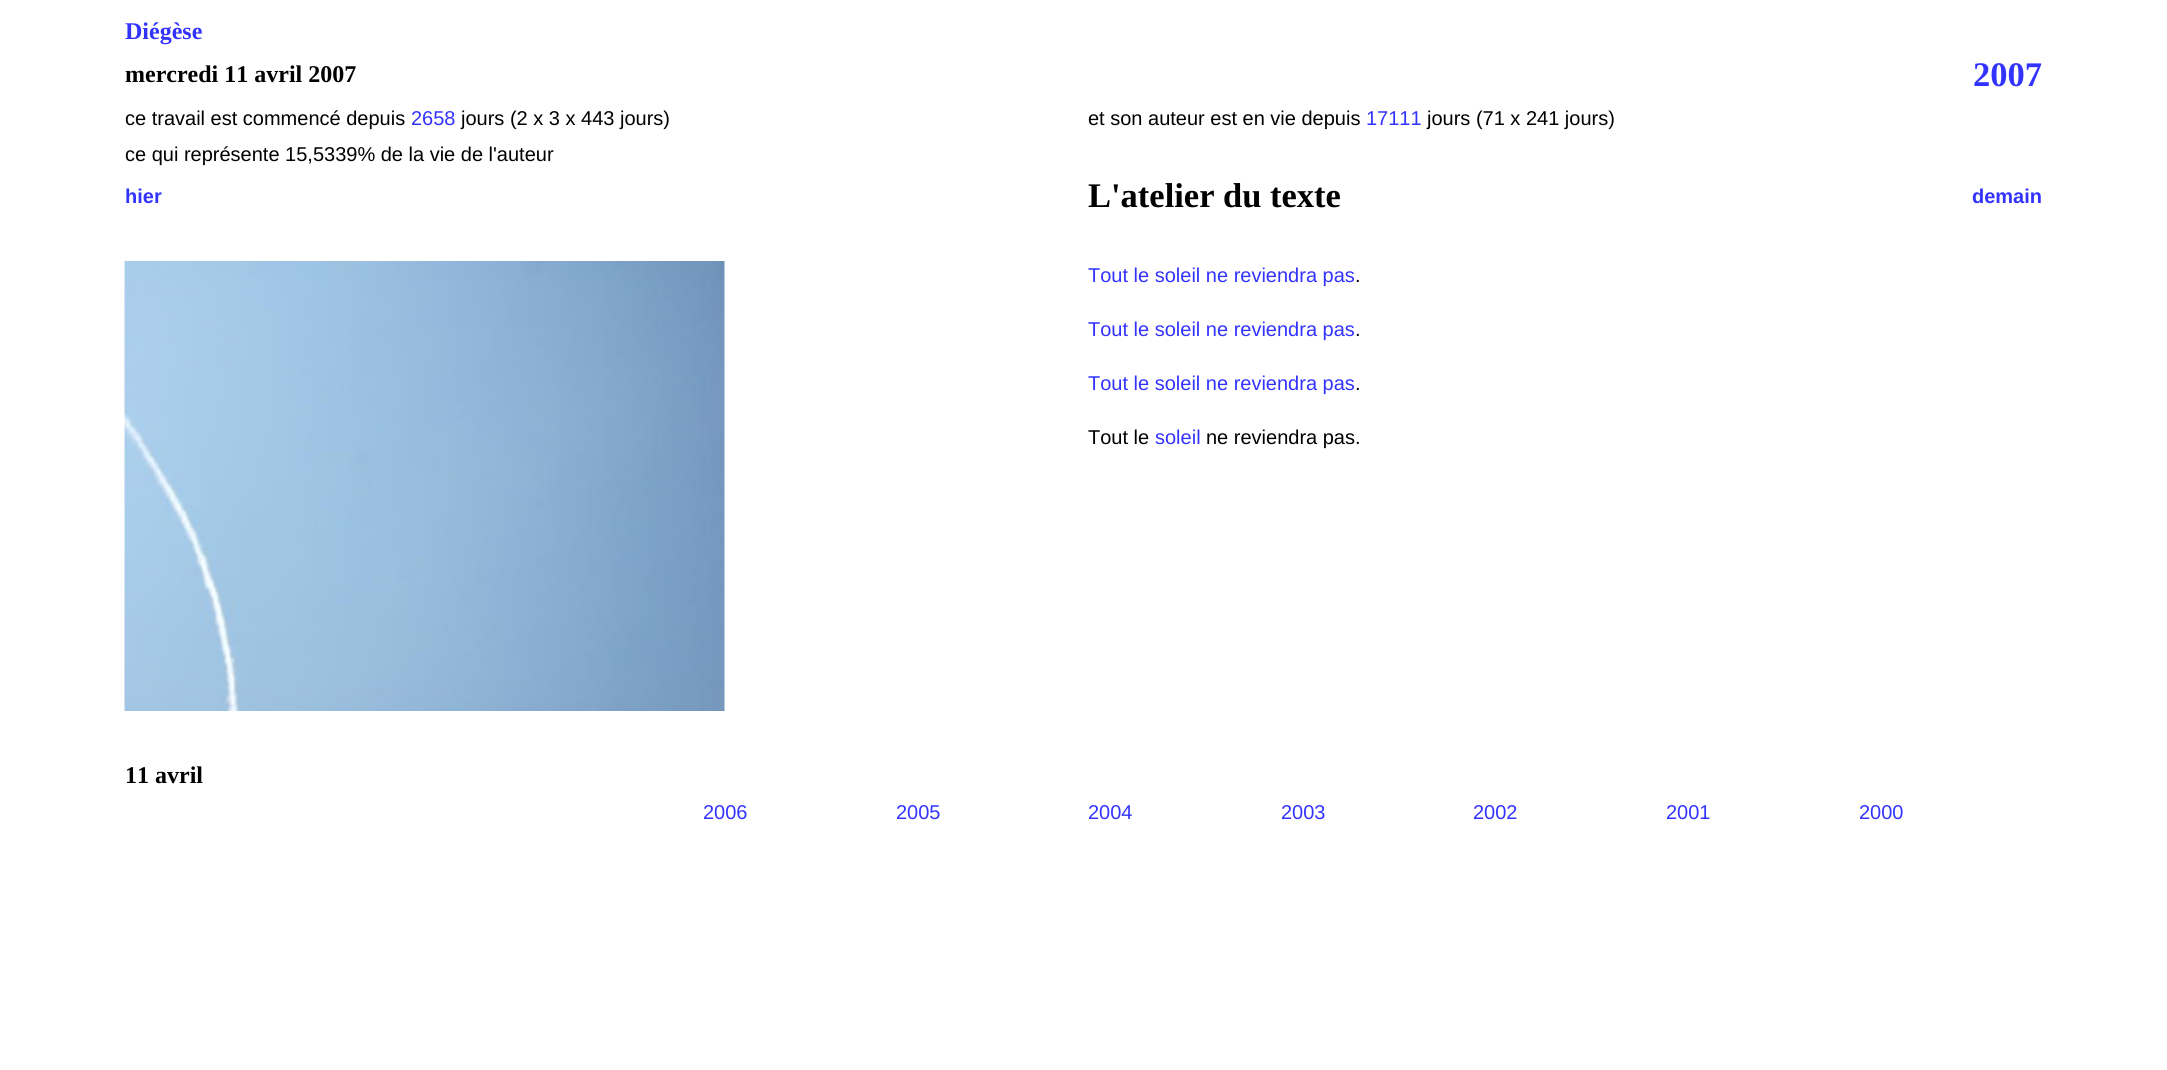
#include <cairo.h>
#include <math.h>
#include <stddef.h>


static void set_color(cairo_t *cr, unsigned color) {
    cairo_set_source_rgb(cr, (color >> 16) / 255.0, (color >> 8 & 255) / 255.0, (color & 255) / 255.0);
}

static void draw_text(cairo_t *cr, double x, double y, const char *s, const char *family, double size, int italic, int bold, unsigned color) {
    cairo_select_font_face(cr, family, italic ? CAIRO_FONT_SLANT_ITALIC : CAIRO_FONT_SLANT_NORMAL,
        bold ? CAIRO_FONT_WEIGHT_BOLD : CAIRO_FONT_WEIGHT_NORMAL);
    cairo_set_font_size(cr, size);
    set_color(cr, color);
    cairo_move_to(cr, x, y);
    cairo_show_text(cr, s);
}

static void draw_image(cairo_t *cr, const char *path, double x, double y, double w, double h) {
    cairo_surface_t *image = cairo_image_surface_create_from_png(path);
    cairo_save(cr);
    cairo_set_source_surface(cr, image, x, y);
    cairo_rectangle(cr, x, y, w, h);
    cairo_fill(cr);
    cairo_restore(cr);
    cairo_surface_destroy(image);
}

int main(void) {
    cairo_surface_t *surface = cairo_image_surface_create(CAIRO_FORMAT_RGB24, 2167, 1070);
    cairo_t *cr = cairo_create(surface);
    cairo_font_options_t *options = cairo_font_options_create();
    cairo_font_options_set_hint_metrics(options, CAIRO_HINT_METRICS_OFF);
    cairo_font_options_set_hint_style(options, CAIRO_HINT_STYLE_NONE);
    cairo_set_font_options(cr, options);
    cairo_set_miter_limit(cr, 4);
    set_color(cr, 0xFFFFFF);
    cairo_paint(cr);
    draw_text(cr, 125, 39, "Diégèse", "Liberation Serif", 24, 0, 1, 0x3333FF);
    draw_text(cr, 125, 82, "mercredi 11 avril 2007", "Liberation Serif", 24, 0, 1, 0x000000);
    draw_text(cr, 1973, 86, "2007", "Liberation Serif", 34.5, 0, 1, 0x3333FF);
    draw_text(cr, 125, 125, "ce travail est commencé depuis", "Liberation Sans", 20, 0, 0, 0x000000);
    draw_text(cr, 411, 125, "2658", "Liberation Sans", 20, 0, 0, 0x3333FF);
    draw_text(cr, 461, 125, "jours (2 x 3 x 443 jours)", "Liberation Sans", 20, 0, 0, 0x000000);
    draw_text(cr, 1088, 125, "et son auteur est en vie depuis", "Liberation Sans", 20, 0, 0, 0x000000);
    draw_text(cr, 1366, 125, "17111", "Liberation Sans", 20, 0, 0, 0x3333FF);
    draw_text(cr, 1427, 125, "jours (71 x 241 jours)", "Liberation Sans", 20, 0, 0, 0x000000);
    draw_text(cr, 125, 161, "ce qui représente 15,5339% de la vie de l'auteur", "Liberation Sans", 20, 0, 0, 0x000000);
    draw_text(cr, 125, 203, "hier", "Liberation Sans", 20, 0, 1, 0x3333FF);
    draw_text(cr, 1088, 207, "L'atelier du texte", "Liberation Serif", 34.5, 0, 1, 0x000000);
    draw_text(cr, 1972, 203, "demain", "Liberation Sans", 20, 0, 1, 0x3333FF);
    draw_image(cr, "assets/img1.png", 124, 261, 601, 450);
    draw_text(cr, 1088, 282, "Tout le soleil ne reviendra pas", "Liberation Sans", 20, 0, 0, 0x3333FF);
    draw_text(cr, 1355, 282, ".", "Liberation Sans", 20, 0, 0, 0x000000);
    draw_text(cr, 1088, 336, "Tout le soleil ne reviendra pas", "Liberation Sans", 20, 0, 0, 0x3333FF);
    draw_text(cr, 1355, 336, ".", "Liberation Sans", 20, 0, 0, 0x000000);
    draw_text(cr, 1088, 390, "Tout le soleil ne reviendra pas", "Liberation Sans", 20, 0, 0, 0x3333FF);
    draw_text(cr, 1355, 390, ".", "Liberation Sans", 20, 0, 0, 0x000000);
    draw_text(cr, 1088, 444, "Tout le", "Liberation Sans", 20, 0, 0, 0x000000);
    draw_text(cr, 1155, 444, "soleil", "Liberation Sans", 20, 0, 0, 0x3333FF);
    draw_text(cr, 1206, 444, "ne reviendra pas.", "Liberation Sans", 20, 0, 0, 0x000000);
    draw_text(cr, 125, 783, "11 avril", "Liberation Serif", 24, 0, 1, 0x000000);
    draw_text(cr, 703, 819, "2006", "Liberation Sans", 20, 0, 0, 0x3333FF);
    draw_text(cr, 896, 819, "2005", "Liberation Sans", 20, 0, 0, 0x3333FF);
    draw_text(cr, 1088, 819, "2004", "Liberation Sans", 20, 0, 0, 0x3333FF);
    draw_text(cr, 1281, 819, "2003", "Liberation Sans", 20, 0, 0, 0x3333FF);
    draw_text(cr, 1473, 819, "2002", "Liberation Sans", 20, 0, 0, 0x3333FF);
    draw_text(cr, 1666, 819, "2001", "Liberation Sans", 20, 0, 0, 0x3333FF);
    draw_text(cr, 1859, 819, "2000", "Liberation Sans", 20, 0, 0, 0x3333FF);
    cairo_surface_write_to_png(surface, "output.png");
    cairo_font_options_destroy(options);
    cairo_destroy(cr);
    cairo_surface_destroy(surface);
    return 0;
}
